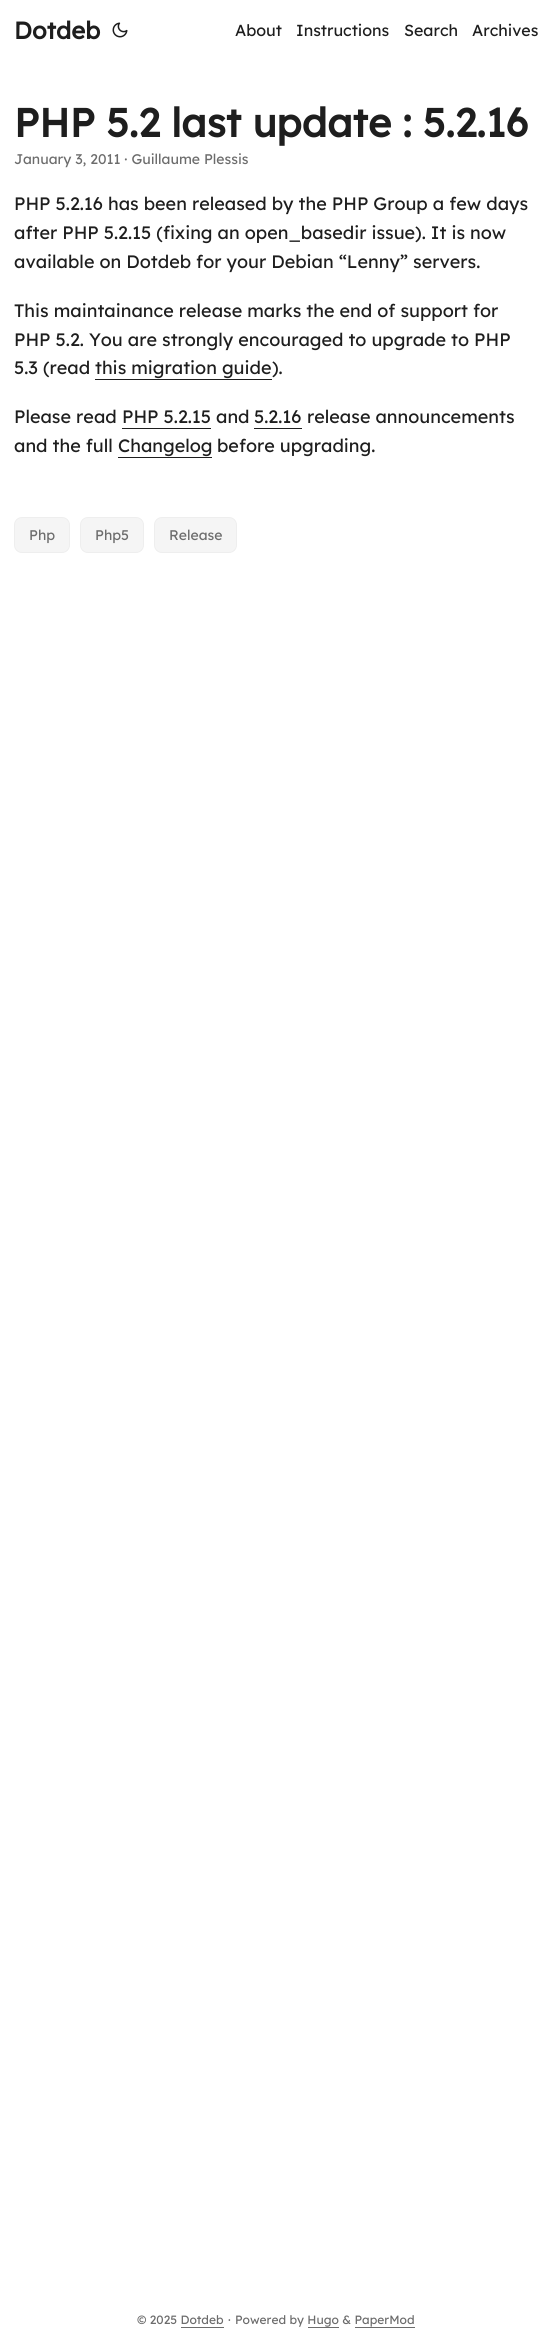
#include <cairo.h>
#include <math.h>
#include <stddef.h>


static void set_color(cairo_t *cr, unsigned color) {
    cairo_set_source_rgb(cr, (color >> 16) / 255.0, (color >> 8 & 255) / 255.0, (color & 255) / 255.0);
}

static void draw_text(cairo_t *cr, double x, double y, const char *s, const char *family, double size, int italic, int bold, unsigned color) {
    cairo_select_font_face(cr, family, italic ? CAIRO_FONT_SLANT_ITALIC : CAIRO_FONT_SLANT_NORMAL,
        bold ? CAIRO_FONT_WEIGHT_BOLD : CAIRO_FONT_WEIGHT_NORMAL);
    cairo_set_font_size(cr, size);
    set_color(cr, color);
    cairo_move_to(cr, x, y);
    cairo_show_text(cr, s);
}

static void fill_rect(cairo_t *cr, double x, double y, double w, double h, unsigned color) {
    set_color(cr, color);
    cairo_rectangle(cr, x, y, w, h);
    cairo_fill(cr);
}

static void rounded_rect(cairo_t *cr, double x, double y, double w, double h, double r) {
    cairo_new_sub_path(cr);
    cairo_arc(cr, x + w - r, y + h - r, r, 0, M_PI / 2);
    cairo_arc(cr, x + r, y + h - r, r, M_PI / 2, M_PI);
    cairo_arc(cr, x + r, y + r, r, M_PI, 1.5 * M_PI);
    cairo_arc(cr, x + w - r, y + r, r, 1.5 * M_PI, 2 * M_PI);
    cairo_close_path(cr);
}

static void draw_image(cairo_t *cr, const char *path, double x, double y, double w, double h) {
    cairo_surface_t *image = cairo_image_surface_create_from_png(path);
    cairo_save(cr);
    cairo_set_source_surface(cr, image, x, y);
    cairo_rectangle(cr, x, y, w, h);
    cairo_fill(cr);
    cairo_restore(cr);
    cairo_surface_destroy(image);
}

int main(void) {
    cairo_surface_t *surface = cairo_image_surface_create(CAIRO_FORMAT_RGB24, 552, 2350);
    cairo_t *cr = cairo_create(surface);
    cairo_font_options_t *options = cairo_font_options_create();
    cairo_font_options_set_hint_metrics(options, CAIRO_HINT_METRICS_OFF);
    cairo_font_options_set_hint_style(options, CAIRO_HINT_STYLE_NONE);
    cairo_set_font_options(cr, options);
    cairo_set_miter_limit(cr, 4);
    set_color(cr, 0xFFFFFF);
    cairo_paint(cr);
    draw_text(cr, 14, 39, "Dotdeb", "Lexend", 24, 0, 1, 0x1E1E1E);
    draw_image(cr, "assets/img1.png", 112, 22, 16, 16);
    draw_text(cr, 235, 36, "About", "Lexend", 16, 0, 0, 0x1E1E1E);
    draw_text(cr, 296, 36, "Instructions", "Lexend", 16, 0, 0, 0x1E1E1E);
    draw_text(cr, 404, 36, "Search", "Lexend", 16, 0, 0, 0x1E1E1E);
    draw_text(cr, 472, 36, "Archives", "Lexend", 16, 0, 0, 0x1E1E1E);
    draw_text(cr, 14, 137, "PHP 5.2 last update : 5.2.16", "Lexend", 40, 0, 1, 0x1E1E1E);
    draw_text(cr, 14, 164, "January 3, 2011 · Guillaume Plessis", "Lexend", 14, 0, 0, 0x6C6C6C);
    draw_text(cr, 14, 210, "PHP 5.2.16 has been released by the PHP Group a few days", "Lexend", 18, 0, 0, 0x1E1E1E);
    draw_text(cr, 14, 239, "after PHP 5.2.15 (fixing an open_basedir issue). It is now", "Lexend", 18, 0, 0, 0x1E1E1E);
    draw_text(cr, 14, 268, "available on Dotdeb for your Debian “Lenny” servers.", "Lexend", 18, 0, 0, 0x1E1E1E);
    draw_text(cr, 14, 317, "This maintainance release marks the end of support for", "Lexend", 18, 0, 0, 0x1E1E1E);
    draw_text(cr, 14, 346, "PHP 5.2. You are strongly encouraged to upgrade to PHP", "Lexend", 18, 0, 0, 0x1E1E1E);
    draw_text(cr, 14, 374, "5.3 (read", "Lexend", 18, 0, 0, 0x1E1E1E);
    draw_text(cr, 95, 374, "this migration guide", "Lexend", 18, 0, 0, 0x1E1E1E);
    fill_rect(cr, 95, 379, 177, 1, 0x1E1E1E);
    draw_text(cr, 272, 374, ").", "Lexend", 18, 0, 0, 0x1E1E1E);
    draw_text(cr, 14, 423, "Please read", "Lexend", 18, 0, 0, 0x1E1E1E);
    draw_text(cr, 122, 423, "PHP 5.2.15", "Lexend", 18, 0, 0, 0x1E1E1E);
    fill_rect(cr, 122, 428, 89, 1, 0x1E1E1E);
    draw_text(cr, 216, 423, "and", "Lexend", 18, 0, 0, 0x1E1E1E);
    draw_text(cr, 254, 423, "5.2.16", "Lexend", 18, 0, 0, 0x1E1E1E);
    fill_rect(cr, 254, 428, 48, 1, 0x1E1E1E);
    draw_text(cr, 307, 423, "release announcements", "Lexend", 18, 0, 0, 0x1E1E1E);
    draw_text(cr, 14, 452, "and the full", "Lexend", 18, 0, 0, 0x1E1E1E);
    draw_text(cr, 118, 452, "Changelog", "Lexend", 18, 0, 0, 0x1E1E1E);
    fill_rect(cr, 118, 457, 94, 1, 0x1E1E1E);
    draw_text(cr, 217, 452, "before upgrading.", "Lexend", 18, 0, 0, 0x1E1E1E);
    set_color(cr, 0xF5F5F5);
    rounded_rect(cr, 14.5, 517.5, 55, 35, 7.5);
    cairo_fill_preserve(cr);
    set_color(cr, 0xEEEEEE);
    cairo_set_line_width(cr, 1);
    cairo_stroke(cr);
    draw_text(cr, 29, 540, "Php", "Lexend", 14, 0, 0, 0x6C6C6C);
    set_color(cr, 0xF5F5F5);
    rounded_rect(cr, 80.5, 517.5, 63, 35, 7.5);
    cairo_fill_preserve(cr);
    set_color(cr, 0xEEEEEE);
    cairo_stroke(cr);
    draw_text(cr, 95, 540, "Php5", "Lexend", 14, 0, 0, 0x6C6C6C);
    set_color(cr, 0xF5F5F5);
    rounded_rect(cr, 154.5, 517.5, 82, 35, 7.5);
    cairo_fill_preserve(cr);
    set_color(cr, 0xEEEEEE);
    cairo_stroke(cr);
    draw_text(cr, 169, 540, "Release", "Lexend", 14, 0, 0, 0x6C6C6C);
    draw_text(cr, 137, 2324, "© 2025 Dotdeb", "Lexend", 12, 0, 0, 0x6C6C6C);
    fill_rect(cr, 181, 2327, 43, 1, 0x6C6C6C);
    draw_text(cr, 228, 2324, "·", "Lexend", 12, 0, 0, 0x6C6C6C);
    draw_text(cr, 235, 2324, "Powered by Hugo & PaperMod", "Lexend", 12, 0, 0, 0x6C6C6C);
    fill_rect(cr, 308, 2327, 31, 1, 0x6C6C6C);
    fill_rect(cr, 355, 2327, 60, 1, 0x6C6C6C);
    cairo_surface_write_to_png(surface, "output.png");
    cairo_font_options_destroy(options);
    cairo_destroy(cr);
    cairo_surface_destroy(surface);
    return 0;
}
